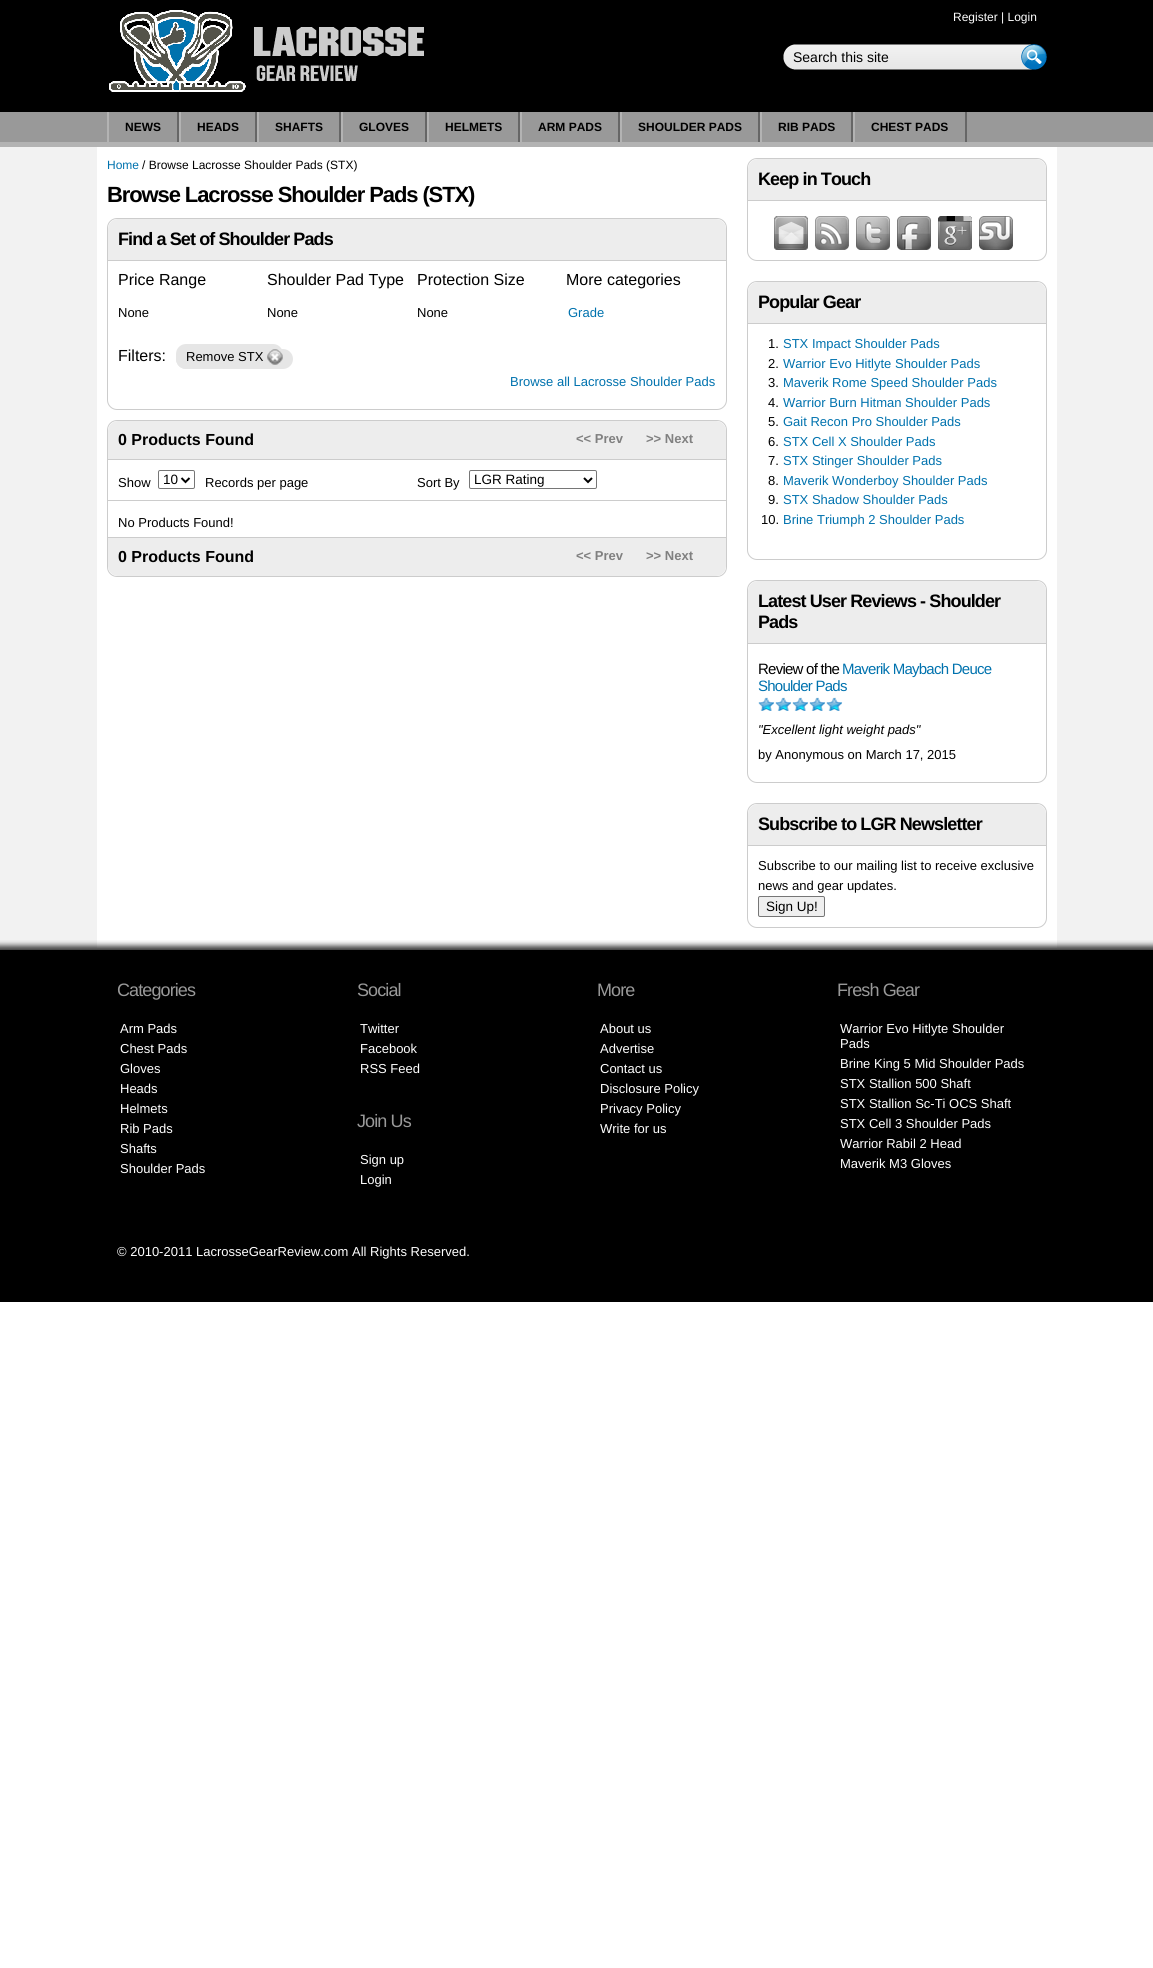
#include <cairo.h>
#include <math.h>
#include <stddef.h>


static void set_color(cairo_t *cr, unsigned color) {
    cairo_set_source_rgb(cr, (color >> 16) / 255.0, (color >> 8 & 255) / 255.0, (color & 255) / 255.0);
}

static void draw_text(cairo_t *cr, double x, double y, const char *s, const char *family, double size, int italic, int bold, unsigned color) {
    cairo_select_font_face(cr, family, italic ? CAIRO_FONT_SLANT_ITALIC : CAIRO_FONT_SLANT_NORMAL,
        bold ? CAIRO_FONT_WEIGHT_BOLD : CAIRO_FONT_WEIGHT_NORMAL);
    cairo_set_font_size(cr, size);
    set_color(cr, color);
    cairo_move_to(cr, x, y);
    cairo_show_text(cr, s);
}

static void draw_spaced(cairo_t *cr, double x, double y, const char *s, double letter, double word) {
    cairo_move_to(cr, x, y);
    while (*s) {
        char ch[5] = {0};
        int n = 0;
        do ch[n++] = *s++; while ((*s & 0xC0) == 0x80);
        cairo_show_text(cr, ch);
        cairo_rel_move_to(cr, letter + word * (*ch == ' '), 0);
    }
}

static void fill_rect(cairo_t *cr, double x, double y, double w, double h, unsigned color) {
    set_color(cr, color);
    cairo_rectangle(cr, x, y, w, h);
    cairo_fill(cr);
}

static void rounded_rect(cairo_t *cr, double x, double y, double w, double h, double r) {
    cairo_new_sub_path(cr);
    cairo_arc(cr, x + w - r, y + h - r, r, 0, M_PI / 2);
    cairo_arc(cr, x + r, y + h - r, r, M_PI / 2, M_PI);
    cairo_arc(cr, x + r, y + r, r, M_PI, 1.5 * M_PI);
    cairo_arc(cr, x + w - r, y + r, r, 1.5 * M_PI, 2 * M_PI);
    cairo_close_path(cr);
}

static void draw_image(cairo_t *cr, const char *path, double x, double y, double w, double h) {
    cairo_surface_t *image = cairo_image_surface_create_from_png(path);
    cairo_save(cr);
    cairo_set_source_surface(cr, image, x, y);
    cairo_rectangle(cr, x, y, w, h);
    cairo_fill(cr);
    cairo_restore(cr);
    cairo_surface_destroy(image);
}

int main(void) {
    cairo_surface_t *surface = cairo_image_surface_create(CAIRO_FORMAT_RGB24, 1153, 1968);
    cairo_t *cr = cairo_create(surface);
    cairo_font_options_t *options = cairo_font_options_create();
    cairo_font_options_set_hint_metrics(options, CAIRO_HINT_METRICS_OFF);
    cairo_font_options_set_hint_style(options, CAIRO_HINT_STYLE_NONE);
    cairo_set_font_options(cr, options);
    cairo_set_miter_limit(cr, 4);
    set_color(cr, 0xFFFFFF);
    cairo_paint(cr);
    fill_rect(cr, 0, 0, 1153, 112, 0x000000);
    draw_image(cr, "assets/img1.png", 109, 10, 315, 82);
    draw_text(cr, 953, 21, "Register | Login", "Liberation Sans", 12, 0, 0, 0xFFFFFF);
    draw_image(cr, "assets/img2.png", 783, 44, 264, 26);
    draw_text(cr, 793, 62, "Search this site", "Liberation Sans", 14, 0, 0, 0x000000);
    fill_rect(cr, 0, 112, 1153, 30, 0x999999);
    fill_rect(cr, 0, 142, 1153, 5, 0xB3B3B3);
    fill_rect(cr, 177, 112, 2, 30, 0x666666);
    fill_rect(cr, 107, 112, 2, 30, 0xB3B3B3);
    draw_text(cr, 125, 131, "NEWS", "Liberation Sans", 12, 0, 1, 0x000000);
    fill_rect(cr, 255, 112, 2, 30, 0x666666);
    fill_rect(cr, 179, 112, 2, 30, 0xB3B3B3);
    draw_text(cr, 197, 131, "HEADS", "Liberation Sans", 12, 0, 1, 0x000000);
    fill_rect(cr, 339, 112, 2, 30, 0x666666);
    fill_rect(cr, 257, 112, 2, 30, 0xB3B3B3);
    draw_text(cr, 275, 131, "SHAFTS", "Liberation Sans", 12, 0, 1, 0x000000);
    fill_rect(cr, 425, 112, 2, 30, 0x666666);
    fill_rect(cr, 341, 112, 2, 30, 0xB3B3B3);
    draw_text(cr, 359, 131, "GLOVES", "Liberation Sans", 12, 0, 1, 0x000000);
    fill_rect(cr, 518, 112, 2, 30, 0x666666);
    fill_rect(cr, 427, 112, 2, 30, 0xB3B3B3);
    draw_text(cr, 445, 131, "HELMETS", "Liberation Sans", 12, 0, 1, 0x000000);
    fill_rect(cr, 618, 112, 2, 30, 0x666666);
    fill_rect(cr, 520, 112, 2, 30, 0xB3B3B3);
    draw_text(cr, 538, 131, "ARM PADS", "Liberation Sans", 12, 0, 1, 0x000000);
    fill_rect(cr, 758, 112, 2, 30, 0x666666);
    fill_rect(cr, 620, 112, 2, 30, 0xB3B3B3);
    draw_text(cr, 638, 131, "SHOULDER PADS", "Liberation Sans", 12, 0, 1, 0x000000);
    fill_rect(cr, 851, 112, 2, 30, 0x666666);
    fill_rect(cr, 760, 112, 2, 30, 0xB3B3B3);
    draw_text(cr, 778, 131, "RIB PADS", "Liberation Sans", 12, 0, 1, 0x000000);
    fill_rect(cr, 965, 112, 2, 30, 0x666666);
    fill_rect(cr, 853, 112, 2, 30, 0xB3B3B3);
    draw_text(cr, 871, 131, "CHEST PADS", "Liberation Sans", 12, 0, 1, 0x000000);
    fill_rect(cr, 0, 147, 1153, 801, 0xF2F2F2);
    fill_rect(cr, 97, 147, 960, 801, 0xFFFFFF);
    draw_text(cr, 107, 169, "Home", "Liberation Sans", 12, 0, 0, 0x0072AE);
    draw_text(cr, 142, 169, "/ Browse Lacrosse Shoulder Pads (STX)", "Liberation Sans", 12, 0, 0, 0x000000);
    cairo_select_font_face(cr, "Liberation Sans", CAIRO_FONT_SLANT_NORMAL, CAIRO_FONT_WEIGHT_BOLD);
    cairo_set_font_size(cr, 22);
    draw_spaced(cr, 107, 202, "Browse Lacrosse Shoulder Pads (STX)", -1.1, 0);
    rounded_rect(cr, 107.5, 218.5, 619, 191, 9.5);
    set_color(cr, 0xCCCCCC);
    cairo_set_line_width(cr, 1);
    cairo_stroke(cr);
    set_color(cr, 0xEDEDED);
    cairo_new_path(cr);
    cairo_move_to(cr, 118, 219);
    cairo_line_to(cr, 716, 219);
    cairo_curve_to(cr, 721.5, 219, 726, 223.5, 726, 229);
    cairo_line_to(cr, 726, 261);
    cairo_line_to(cr, 108, 261);
    cairo_line_to(cr, 108, 229);
    cairo_curve_to(cr, 108, 223.5, 112.5, 219, 118, 219);
    cairo_close_path(cr);
    cairo_fill(cr);
    fill_rect(cr, 108, 260, 618, 1, 0xCCCCCC);
    cairo_set_font_size(cr, 18);
    set_color(cr, 0x000000);
    draw_spaced(cr, 118, 245, "Find a Set of Shoulder Pads", -0.9, 0);
    draw_text(cr, 118, 285, "Price Range", "Liberation Sans", 16, 0, 0, 0x000000);
    draw_text(cr, 118, 317, "None", "Liberation Sans", 13, 0, 0, 0x000000);
    draw_text(cr, 267, 285, "Shoulder Pad Type", "Liberation Sans", 16, 0, 0, 0x000000);
    draw_text(cr, 267, 317, "None", "Liberation Sans", 13, 0, 0, 0x000000);
    draw_text(cr, 417, 285, "Protection Size", "Liberation Sans", 16, 0, 0, 0x000000);
    draw_text(cr, 417, 317, "None", "Liberation Sans", 13, 0, 0, 0x000000);
    draw_text(cr, 566, 285, "More categories", "Liberation Sans", 16, 0, 0, 0x000000);
    draw_text(cr, 568, 317, "Grade", "Liberation Sans", 13, 0, 0, 0x0072AE);
    draw_text(cr, 118, 361, "Filters:", "Liberation Sans", 16, 0, 0, 0x000000);
    set_color(cr, 0xE6E6E6);
    rounded_rect(cr, 176, 349, 117, 20, 10);
    cairo_fill(cr);
    rounded_rect(cr, 176, 344, 107, 25, 10);
    cairo_fill(cr);
    draw_text(cr, 186, 361, "Remove STX", "Liberation Sans", 13, 0, 0, 0x000000);
    draw_image(cr, "assets/img3.png", 267, 349, 16, 16);
    draw_text(cr, 510, 386, "Browse all Lacrosse Shoulder Pads", "Liberation Sans", 13, 0, 0, 0x0072AE);
    rounded_rect(cr, 107.5, 420.5, 619, 156, 9.5);
    set_color(cr, 0xCCCCCC);
    cairo_stroke(cr);
    set_color(cr, 0xEDEDED);
    cairo_new_path(cr);
    cairo_move_to(cr, 118, 421);
    cairo_line_to(cr, 716, 421);
    cairo_curve_to(cr, 721.5, 421, 726, 425.5, 726, 431);
    cairo_line_to(cr, 726, 460);
    cairo_line_to(cr, 108, 460);
    cairo_line_to(cr, 108, 431);
    cairo_curve_to(cr, 108, 425.5, 112.5, 421, 118, 421);
    cairo_close_path(cr);
    cairo_fill(cr);
    fill_rect(cr, 108, 459, 618, 1, 0xCCCCCC);
    draw_text(cr, 118, 445, "0 Products Found", "Liberation Sans", 16, 0, 1, 0x000000);
    draw_text(cr, 576, 443, "<< Prev", "Liberation Sans", 13, 0, 1, 0x808080);
    draw_text(cr, 646, 443, ">> Next", "Liberation Sans", 13, 0, 1, 0x808080);
    fill_rect(cr, 108, 500, 618, 1, 0xCCCCCC);
    draw_text(cr, 118, 487, "Show", "Liberation Sans", 13, 0, 0, 0x000000);
    rounded_rect(cr, 158.5, 470.5, 36, 18, 1.5);
    set_color(cr, 0x767676);
    cairo_stroke(cr);
    cairo_new_path(cr);
    cairo_move_to(cr, 181.5, 478);
    cairo_line_to(cr, 185.5, 482);
    cairo_line_to(cr, 189.5, 478);
    set_color(cr, 0x000000);
    cairo_set_line_width(cr, 2);
    cairo_stroke(cr);
    draw_text(cr, 163, 484, "10", "Liberation Sans", 13.5, 0, 0, 0x000000);
    draw_text(cr, 205, 487, "Records per page", "Liberation Sans", 13, 0, 0, 0x000000);
    draw_text(cr, 417, 487, "Sort By", "Liberation Sans", 13, 0, 0, 0x000000);
    rounded_rect(cr, 469.5, 470.5, 127, 18, 1.5);
    set_color(cr, 0x767676);
    cairo_set_line_width(cr, 1);
    cairo_stroke(cr);
    cairo_new_path(cr);
    cairo_move_to(cr, 584, 478);
    cairo_line_to(cr, 588, 482);
    cairo_line_to(cr, 592, 478);
    set_color(cr, 0x000000);
    cairo_set_line_width(cr, 2);
    cairo_stroke(cr);
    draw_text(cr, 474, 484, "LGR Rating", "Liberation Sans", 13.5, 0, 0, 0x000000);
    draw_text(cr, 118, 527, "No Products Found!", "Liberation Sans", 13, 0, 0, 0x000000);
    set_color(cr, 0xEDEDED);
    cairo_new_path(cr);
    cairo_move_to(cr, 108, 537);
    cairo_line_to(cr, 726, 537);
    cairo_line_to(cr, 726, 566);
    cairo_curve_to(cr, 726, 571.5, 721.5, 576, 716, 576);
    cairo_line_to(cr, 118, 576);
    cairo_curve_to(cr, 112.5, 576, 108, 571.5, 108, 566);
    cairo_close_path(cr);
    cairo_fill(cr);
    fill_rect(cr, 108, 537, 618, 1, 0xCCCCCC);
    draw_text(cr, 118, 562, "0 Products Found", "Liberation Sans", 16, 0, 1, 0x000000);
    draw_text(cr, 576, 560, "<< Prev", "Liberation Sans", 13, 0, 1, 0x808080);
    draw_text(cr, 646, 560, ">> Next", "Liberation Sans", 13, 0, 1, 0x808080);
    rounded_rect(cr, 747.5, 158.5, 299, 102, 9.5);
    set_color(cr, 0xCCCCCC);
    cairo_set_line_width(cr, 1);
    cairo_stroke(cr);
    set_color(cr, 0xEDEDED);
    cairo_new_path(cr);
    cairo_move_to(cr, 758, 159);
    cairo_line_to(cr, 1036, 159);
    cairo_curve_to(cr, 1041.5, 159, 1046, 163.5, 1046, 169);
    cairo_line_to(cr, 1046, 201);
    cairo_line_to(cr, 748, 201);
    cairo_line_to(cr, 748, 169);
    cairo_curve_to(cr, 748, 163.5, 752.5, 159, 758, 159);
    cairo_close_path(cr);
    cairo_fill(cr);
    fill_rect(cr, 748, 200, 298, 1, 0xCCCCCC);
    cairo_set_font_size(cr, 18);
    set_color(cr, 0x000000);
    draw_spaced(cr, 758, 185, "Keep in Touch", -0.9, 0);
    draw_image(cr, "assets/img4.png", 774, 216, 34, 34);
    draw_image(cr, "assets/img5.png", 815, 216, 34, 34);
    draw_image(cr, "assets/img6.png", 856, 216, 34, 34);
    draw_image(cr, "assets/img7.png", 897, 216, 34, 34);
    draw_image(cr, "assets/img8.png", 938, 216, 34, 34);
    draw_image(cr, "assets/img9.png", 979, 216, 34, 34);
    rounded_rect(cr, 747.5, 281.5, 299, 278, 9.5);
    set_color(cr, 0xCCCCCC);
    cairo_stroke(cr);
    set_color(cr, 0xEDEDED);
    cairo_new_path(cr);
    cairo_move_to(cr, 758, 282);
    cairo_line_to(cr, 1036, 282);
    cairo_curve_to(cr, 1041.5, 282, 1046, 286.5, 1046, 292);
    cairo_line_to(cr, 1046, 324);
    cairo_line_to(cr, 748, 324);
    cairo_line_to(cr, 748, 292);
    cairo_curve_to(cr, 748, 286.5, 752.5, 282, 758, 282);
    cairo_close_path(cr);
    cairo_fill(cr);
    fill_rect(cr, 748, 323, 298, 1, 0xCCCCCC);
    set_color(cr, 0x000000);
    draw_spaced(cr, 758, 308, "Popular Gear", -0.9, 0);
    draw_text(cr, 768, 348, "1.", "Liberation Sans", 13, 0, 0, 0x000000);
    draw_text(cr, 783, 348, "STX Impact Shoulder Pads", "Liberation Sans", 13, 0, 0, 0x0072AE);
    draw_text(cr, 768, 368, "2.", "Liberation Sans", 13, 0, 0, 0x000000);
    draw_text(cr, 783, 368, "Warrior Evo Hitlyte Shoulder Pads", "Liberation Sans", 13, 0, 0, 0x0072AE);
    draw_text(cr, 768, 387, "3.", "Liberation Sans", 13, 0, 0, 0x000000);
    draw_text(cr, 783, 387, "Maverik Rome Speed Shoulder Pads", "Liberation Sans", 13, 0, 0, 0x0072AE);
    draw_text(cr, 768, 407, "4.", "Liberation Sans", 13, 0, 0, 0x000000);
    draw_text(cr, 783, 407, "Warrior Burn Hitman Shoulder Pads", "Liberation Sans", 13, 0, 0, 0x0072AE);
    draw_text(cr, 768, 426, "5.", "Liberation Sans", 13, 0, 0, 0x000000);
    draw_text(cr, 783, 426, "Gait Recon Pro Shoulder Pads", "Liberation Sans", 13, 0, 0, 0x0072AE);
    draw_text(cr, 768, 446, "6.", "Liberation Sans", 13, 0, 0, 0x000000);
    draw_text(cr, 783, 446, "STX Cell X Shoulder Pads", "Liberation Sans", 13, 0, 0, 0x0072AE);
    draw_text(cr, 768, 465, "7.", "Liberation Sans", 13, 0, 0, 0x000000);
    draw_text(cr, 783, 465, "STX Stinger Shoulder Pads", "Liberation Sans", 13, 0, 0, 0x0072AE);
    draw_text(cr, 768, 485, "8.", "Liberation Sans", 13, 0, 0, 0x000000);
    draw_text(cr, 783, 485, "Maverik Wonderboy Shoulder Pads", "Liberation Sans", 13, 0, 0, 0x0072AE);
    draw_text(cr, 768, 504, "9.", "Liberation Sans", 13, 0, 0, 0x000000);
    draw_text(cr, 783, 504, "STX Shadow Shoulder Pads", "Liberation Sans", 13, 0, 0, 0x0072AE);
    draw_text(cr, 761, 524, "10.", "Liberation Sans", 13, 0, 0, 0x000000);
    draw_text(cr, 783, 524, "Brine Triumph 2 Shoulder Pads", "Liberation Sans", 13, 0, 0, 0x0072AE);
    rounded_rect(cr, 747.5, 580.5, 299, 202, 9.5);
    set_color(cr, 0xCCCCCC);
    cairo_stroke(cr);
    set_color(cr, 0xEDEDED);
    cairo_new_path(cr);
    cairo_move_to(cr, 758, 581);
    cairo_line_to(cr, 1036, 581);
    cairo_curve_to(cr, 1041.5, 581, 1046, 585.5, 1046, 591);
    cairo_line_to(cr, 1046, 644);
    cairo_line_to(cr, 748, 644);
    cairo_line_to(cr, 748, 591);
    cairo_curve_to(cr, 748, 585.5, 752.5, 581, 758, 581);
    cairo_close_path(cr);
    cairo_fill(cr);
    fill_rect(cr, 748, 643, 298, 1, 0xCCCCCC);
    cairo_select_font_face(cr, "Liberation Sans", CAIRO_FONT_SLANT_NORMAL, CAIRO_FONT_WEIGHT_BOLD);
    cairo_set_font_size(cr, 18);
    set_color(cr, 0x000000);
    draw_spaced(cr, 758, 607, "Latest User Reviews - Shoulder", -0.9, 0);
    draw_spaced(cr, 758, 628, "Pads", -0.9, 0);
    cairo_select_font_face(cr, "Liberation Sans", CAIRO_FONT_SLANT_NORMAL, CAIRO_FONT_WEIGHT_NORMAL);
    cairo_set_font_size(cr, 15);
    draw_spaced(cr, 758, 674, "Review of the", -0.75, 0);
    set_color(cr, 0x0072AE);
    draw_spaced(cr, 842, 674, "Maverik Maybach Deuce", -0.75, 0);
    draw_spaced(cr, 758, 691, "Shoulder Pads", -0.75, 0);
    draw_image(cr, "assets/img10.png", 759, 697, 16, 14);
    draw_image(cr, "assets/img11.png", 758, 697, 16, 14);
    draw_image(cr, "assets/img12.png", 776, 697, 16, 14);
    draw_image(cr, "assets/img13.png", 775, 697, 16, 14);
    draw_image(cr, "assets/img10.png", 793, 697, 16, 14);
    draw_image(cr, "assets/img11.png", 792, 697, 16, 14);
    draw_image(cr, "assets/img10.png", 810, 697, 16, 14);
    draw_image(cr, "assets/img11.png", 809, 697, 16, 14);
    draw_image(cr, "assets/img10.png", 827, 697, 16, 14);
    draw_image(cr, "assets/img11.png", 826, 697, 16, 14);
    draw_text(cr, 758, 734, "\"Excellent light weight pads\"", "Liberation Sans", 13, 1, 0, 0x000000);
    draw_text(cr, 758, 759, "by Anonymous on March 17, 2015", "Liberation Sans", 13, 0, 0, 0x000000);
    rounded_rect(cr, 747.5, 803.5, 299, 124, 9.5);
    set_color(cr, 0xCCCCCC);
    cairo_stroke(cr);
    set_color(cr, 0xEDEDED);
    cairo_new_path(cr);
    cairo_move_to(cr, 758, 804);
    cairo_line_to(cr, 1036, 804);
    cairo_curve_to(cr, 1041.5, 804, 1046, 808.5, 1046, 814);
    cairo_line_to(cr, 1046, 846);
    cairo_line_to(cr, 748, 846);
    cairo_line_to(cr, 748, 814);
    cairo_curve_to(cr, 748, 808.5, 752.5, 804, 758, 804);
    cairo_close_path(cr);
    cairo_fill(cr);
    fill_rect(cr, 748, 845, 298, 1, 0xCCCCCC);
    cairo_select_font_face(cr, "Liberation Sans", CAIRO_FONT_SLANT_NORMAL, CAIRO_FONT_WEIGHT_BOLD);
    cairo_set_font_size(cr, 18);
    set_color(cr, 0x000000);
    draw_spaced(cr, 758, 830, "Subscribe to LGR Newsletter", -0.9, 0);
    draw_text(cr, 758, 870, "Subscribe to our mailing list to receive exclusive", "Liberation Sans", 13, 0, 0, 0x000000);
    draw_text(cr, 758, 890, "news and gear updates.", "Liberation Sans", 13, 0, 0, 0x000000);
    set_color(cr, 0xEFEFEF);
    rounded_rect(cr, 758.5, 896.5, 66, 20, 1.5);
    cairo_fill_preserve(cr);
    set_color(cr, 0x767676);
    cairo_stroke(cr);
    draw_text(cr, 766, 911, "Sign Up!", "Liberation Sans", 13.5, 0, 0, 0x000000);
    draw_image(cr, "assets/img14.png", 0, 940, 1153, 10);
    fill_rect(cr, 0, 950, 1153, 352, 0x000000);
    cairo_set_font_size(cr, 18);
    set_color(cr, 0x999999);
    draw_spaced(cr, 117, 996, "Categories", -0.9, 0);
    draw_text(cr, 120, 1033, "Arm Pads", "Liberation Sans", 13, 0, 0, 0xFFFFFF);
    draw_text(cr, 120, 1053, "Chest Pads", "Liberation Sans", 13, 0, 0, 0xFFFFFF);
    draw_text(cr, 120, 1073, "Gloves", "Liberation Sans", 13, 0, 0, 0xFFFFFF);
    draw_text(cr, 120, 1093, "Heads", "Liberation Sans", 13, 0, 0, 0xFFFFFF);
    draw_text(cr, 120, 1113, "Helmets", "Liberation Sans", 13, 0, 0, 0xFFFFFF);
    draw_text(cr, 120, 1133, "Rib Pads", "Liberation Sans", 13, 0, 0, 0xFFFFFF);
    draw_text(cr, 120, 1153, "Shafts", "Liberation Sans", 13, 0, 0, 0xFFFFFF);
    draw_text(cr, 120, 1173, "Shoulder Pads", "Liberation Sans", 13, 0, 0, 0xFFFFFF);
    cairo_set_font_size(cr, 18);
    set_color(cr, 0x999999);
    draw_spaced(cr, 357, 996, "Social", -0.9, 0);
    draw_text(cr, 360, 1033, "Twitter", "Liberation Sans", 13, 0, 0, 0xFFFFFF);
    draw_text(cr, 360, 1053, "Facebook", "Liberation Sans", 13, 0, 0, 0xFFFFFF);
    draw_text(cr, 360, 1073, "RSS Feed", "Liberation Sans", 13, 0, 0, 0xFFFFFF);
    cairo_set_font_size(cr, 18);
    set_color(cr, 0x999999);
    draw_spaced(cr, 357, 1127, "Join Us", -0.9, 0);
    draw_text(cr, 360, 1164, "Sign up", "Liberation Sans", 13, 0, 0, 0xFFFFFF);
    draw_text(cr, 360, 1184, "Login", "Liberation Sans", 13, 0, 0, 0xFFFFFF);
    cairo_set_font_size(cr, 18);
    set_color(cr, 0x999999);
    draw_spaced(cr, 597, 996, "More", -0.9, 0);
    draw_text(cr, 600, 1033, "About us", "Liberation Sans", 13, 0, 0, 0xFFFFFF);
    draw_text(cr, 600, 1053, "Advertise", "Liberation Sans", 13, 0, 0, 0xFFFFFF);
    draw_text(cr, 600, 1073, "Contact us", "Liberation Sans", 13, 0, 0, 0xFFFFFF);
    draw_text(cr, 600, 1093, "Disclosure Policy", "Liberation Sans", 13, 0, 0, 0xFFFFFF);
    draw_text(cr, 600, 1113, "Privacy Policy", "Liberation Sans", 13, 0, 0, 0xFFFFFF);
    draw_text(cr, 600, 1133, "Write for us", "Liberation Sans", 13, 0, 0, 0xFFFFFF);
    cairo_set_font_size(cr, 18);
    set_color(cr, 0x999999);
    draw_spaced(cr, 837, 996, "Fresh Gear", -0.9, 0);
    draw_text(cr, 840, 1033, "Warrior Evo Hitlyte Shoulder", "Liberation Sans", 13, 0, 0, 0xFFFFFF);
    draw_text(cr, 840, 1048, "Pads", "Liberation Sans", 13, 0, 0, 0xFFFFFF);
    draw_text(cr, 840, 1068, "Brine King 5 Mid Shoulder Pads", "Liberation Sans", 13, 0, 0, 0xFFFFFF);
    draw_text(cr, 840, 1088, "STX Stallion 500 Shaft", "Liberation Sans", 13, 0, 0, 0xFFFFFF);
    draw_text(cr, 840, 1108, "STX Stallion Sc-Ti OCS Shaft", "Liberation Sans", 13, 0, 0, 0xFFFFFF);
    draw_text(cr, 840, 1128, "STX Cell 3 Shoulder Pads", "Liberation Sans", 13, 0, 0, 0xFFFFFF);
    draw_text(cr, 840, 1148, "Warrior Rabil 2 Head", "Liberation Sans", 13, 0, 0, 0xFFFFFF);
    draw_text(cr, 840, 1168, "Maverik M3 Gloves", "Liberation Sans", 13, 0, 0, 0xFFFFFF);
    draw_text(cr, 117, 1256, "© 2010-2011 LacrosseGearReview.com All Rights Reserved.", "Liberation Sans", 13, 0, 0, 0xFFFFFF);
    cairo_surface_write_to_png(surface, "output.png");
    cairo_font_options_destroy(options);
    cairo_destroy(cr);
    cairo_surface_destroy(surface);
    return 0;
}
